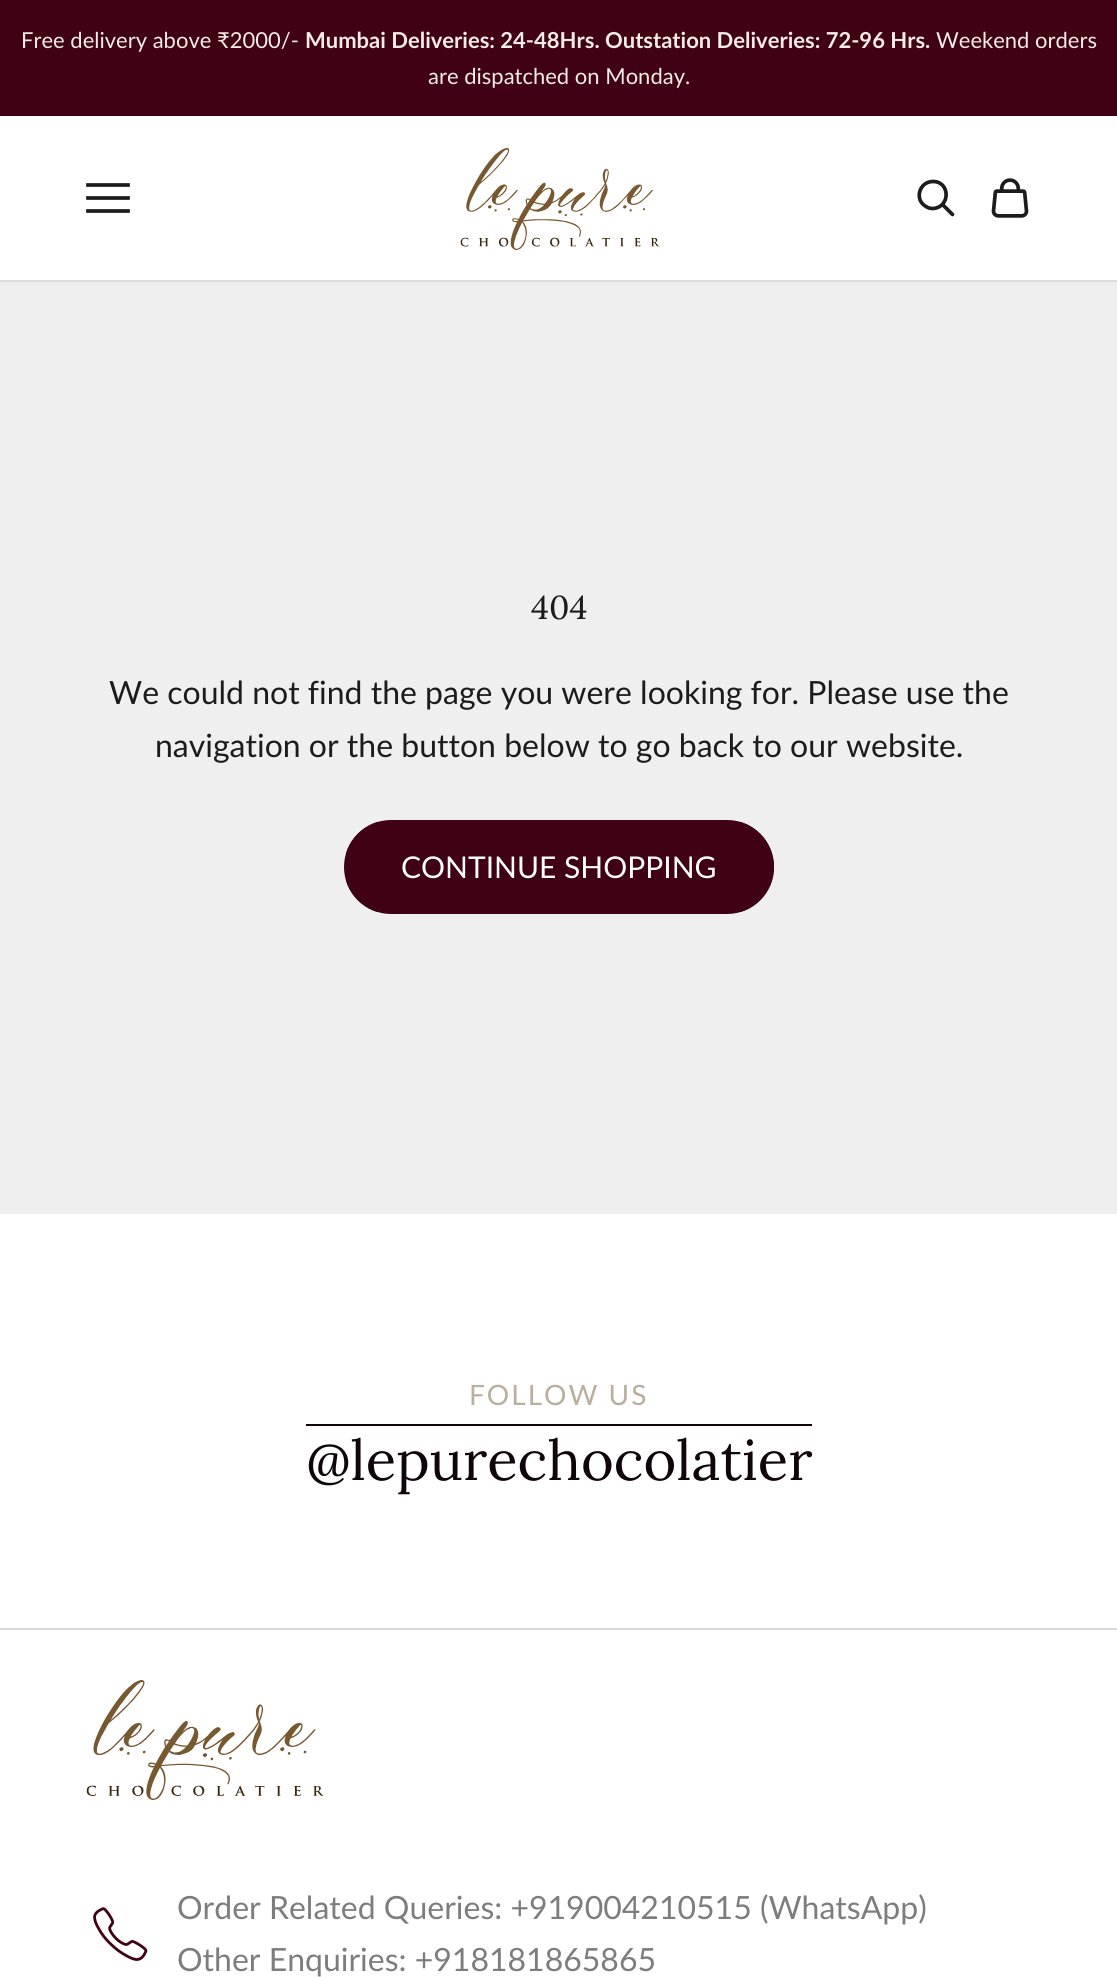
#include <cairo.h>
#include <math.h>
#include <stddef.h>


static void set_color(cairo_t *cr, unsigned color) {
    cairo_set_source_rgb(cr, (color >> 16) / 255.0, (color >> 8 & 255) / 255.0, (color & 255) / 255.0);
}

static void draw_text(cairo_t *cr, double x, double y, const char *s, const char *family, double size, int italic, int bold, unsigned color) {
    cairo_select_font_face(cr, family, italic ? CAIRO_FONT_SLANT_ITALIC : CAIRO_FONT_SLANT_NORMAL,
        bold ? CAIRO_FONT_WEIGHT_BOLD : CAIRO_FONT_WEIGHT_NORMAL);
    cairo_set_font_size(cr, size);
    set_color(cr, color);
    cairo_move_to(cr, x, y);
    cairo_show_text(cr, s);
}

static void draw_spaced(cairo_t *cr, double x, double y, const char *s, double letter, double word) {
    cairo_move_to(cr, x, y);
    while (*s) {
        char ch[5] = {0};
        int n = 0;
        do ch[n++] = *s++; while ((*s & 0xC0) == 0x80);
        cairo_show_text(cr, ch);
        cairo_rel_move_to(cr, letter + word * (*ch == ' '), 0);
    }
}

static void fill_rect(cairo_t *cr, double x, double y, double w, double h, unsigned color) {
    set_color(cr, color);
    cairo_rectangle(cr, x, y, w, h);
    cairo_fill(cr);
}

static void rounded_rect(cairo_t *cr, double x, double y, double w, double h, double r) {
    cairo_new_sub_path(cr);
    cairo_arc(cr, x + w - r, y + h - r, r, 0, M_PI / 2);
    cairo_arc(cr, x + r, y + h - r, r, M_PI / 2, M_PI);
    cairo_arc(cr, x + r, y + r, r, M_PI, 1.5 * M_PI);
    cairo_arc(cr, x + w - r, y + r, r, 1.5 * M_PI, 2 * M_PI);
    cairo_close_path(cr);
}

static void draw_image(cairo_t *cr, const char *path, double x, double y, double w, double h) {
    cairo_surface_t *image = cairo_image_surface_create_from_png(path);
    cairo_save(cr);
    cairo_set_source_surface(cr, image, x, y);
    cairo_rectangle(cr, x, y, w, h);
    cairo_fill(cr);
    cairo_restore(cr);
    cairo_surface_destroy(image);
}

int main(void) {
    cairo_surface_t *surface = cairo_image_surface_create(CAIRO_FORMAT_RGB24, 1117, 1977);
    cairo_t *cr = cairo_create(surface);
    cairo_font_options_t *options = cairo_font_options_create();
    cairo_font_options_set_hint_metrics(options, CAIRO_HINT_METRICS_OFF);
    cairo_font_options_set_hint_style(options, CAIRO_HINT_STYLE_NONE);
    cairo_set_font_options(cr, options);
    cairo_set_miter_limit(cr, 4);
    set_color(cr, 0xFFFFFF);
    cairo_paint(cr);
    fill_rect(cr, 0, 0, 1117, 116, 0x3F0113);
    draw_text(cr, 21, 48, "Free delivery above ₹2000/-", "Lato", 22, 0, 0, 0xF4ECE6);
    draw_text(cr, 305, 48, "Mumbai Deliveries: 24-48Hrs. Outstation Deliveries: 72-96 Hrs.", "Lato", 22, 0, 1, 0xF4ECE6);
    draw_text(cr, 936, 48, "Weekend orders", "Lato", 22, 0, 0, 0xF4ECE6);
    draw_text(cr, 428, 84, "are dispatched on Monday.", "Lato", 22, 0, 0, 0xF4ECE6);
    fill_rect(cr, 0, 280, 1117, 2, 0xDDDDDD);
    cairo_new_path(cr);
    cairo_move_to(cr, 88, 211);
    cairo_line_to(cr, 128, 211);
    cairo_move_to(cr, 88, 198);
    cairo_line_to(cr, 128, 198);
    cairo_move_to(cr, 88, 185);
    cairo_line_to(cr, 128, 185);
    set_color(cr, 0x1C1C1C);
    cairo_set_line_width(cr, 3.7);
    cairo_set_line_cap(cr, CAIRO_LINE_CAP_SQUARE);
    cairo_stroke(cr);
    draw_image(cr, "assets/img1.png", 460, 148, 200, 102);
    cairo_new_path(cr);
    cairo_move_to(cr, 933, 181.5);
    cairo_curve_to(cr, 919, 181.5, 914, 200, 926, 206.5);
    cairo_curve_to(cr, 928, 208, 930.5, 208.5, 933, 208.5);
    cairo_curve_to(cr, 950.5, 207.5, 950.5, 181.5, 933, 181.5);
    cairo_close_path(cr);
    cairo_set_line_cap(cr, CAIRO_LINE_CAP_BUTT);
    cairo_stroke(cr);
    cairo_new_path(cr);
    cairo_move_to(cr, 943, 205);
    cairo_line_to(cr, 952.5, 214.5);
    cairo_set_line_cap(cr, CAIRO_LINE_CAP_ROUND);
    cairo_stroke(cr);
    draw_image(cr, "assets/img2.png", 991, 178, 38, 40);
    fill_rect(cr, 0, 282, 1117, 932, 0xEFEFEF);
    draw_text(cr, 531, 619, "404", "Lora", 33, 0, 0, 0x1C1C1C);
    draw_text(cr, 109, 704, "We could not find the page you were looking for. Please use the", "Lato", 32, 0, 0, 0x1C1C1C);
    draw_text(cr, 155, 757, "navigation or the button below to go back to our website.", "Lato", 32, 0, 0, 0x1C1C1C);
    cairo_save(cr);
    rounded_rect(cr, 344, 820, 430, 94, 47);
    cairo_clip(cr);
    fill_rect(cr, 346, 822, 428, 90, 0x3F0113);
    cairo_restore(cr);
    rounded_rect(cr, 345, 821, 428, 92, 46);
    set_color(cr, 0x3F0113);
    cairo_set_line_width(cr, 2);
    cairo_set_line_cap(cr, CAIRO_LINE_CAP_BUTT);
    cairo_stroke(cr);
    draw_text(cr, 401, 878, "CONTINUE SHOPPING", "Lato", 30, 0, 0, 0xFFFFFF);
    cairo_set_font_size(cr, 28);
    set_color(cr, 0xBAAE9D);
    draw_spaced(cr, 469, 1405, "FOLLOW US", 2, 0);
    draw_text(cr, 306, 1480, "@lepurechocolatier", "Lora", 56, 0, 0, 0x0F060B);
    fill_rect(cr, 306, 1424, 506, 2, 0x0F060B);
    fill_rect(cr, 0, 1628, 1117, 2, 0xD8D8D8);
    draw_image(cr, "assets/img3.png", 86, 1680, 238, 120);
    draw_image(cr, "assets/img4.png", 93, 1907, 55, 54);
    draw_text(cr, 177, 1919, "Order Related Queries: +919004210515 (WhatsApp)", "Lato", 32, 0, 0, 0x7D7D7D);
    draw_text(cr, 177, 1971, "Other Enquiries: +918181865865", "Lato", 32, 0, 0, 0x7D7D7D);
    cairo_surface_write_to_png(surface, "output.png");
    cairo_font_options_destroy(options);
    cairo_destroy(cr);
    cairo_surface_destroy(surface);
    return 0;
}
